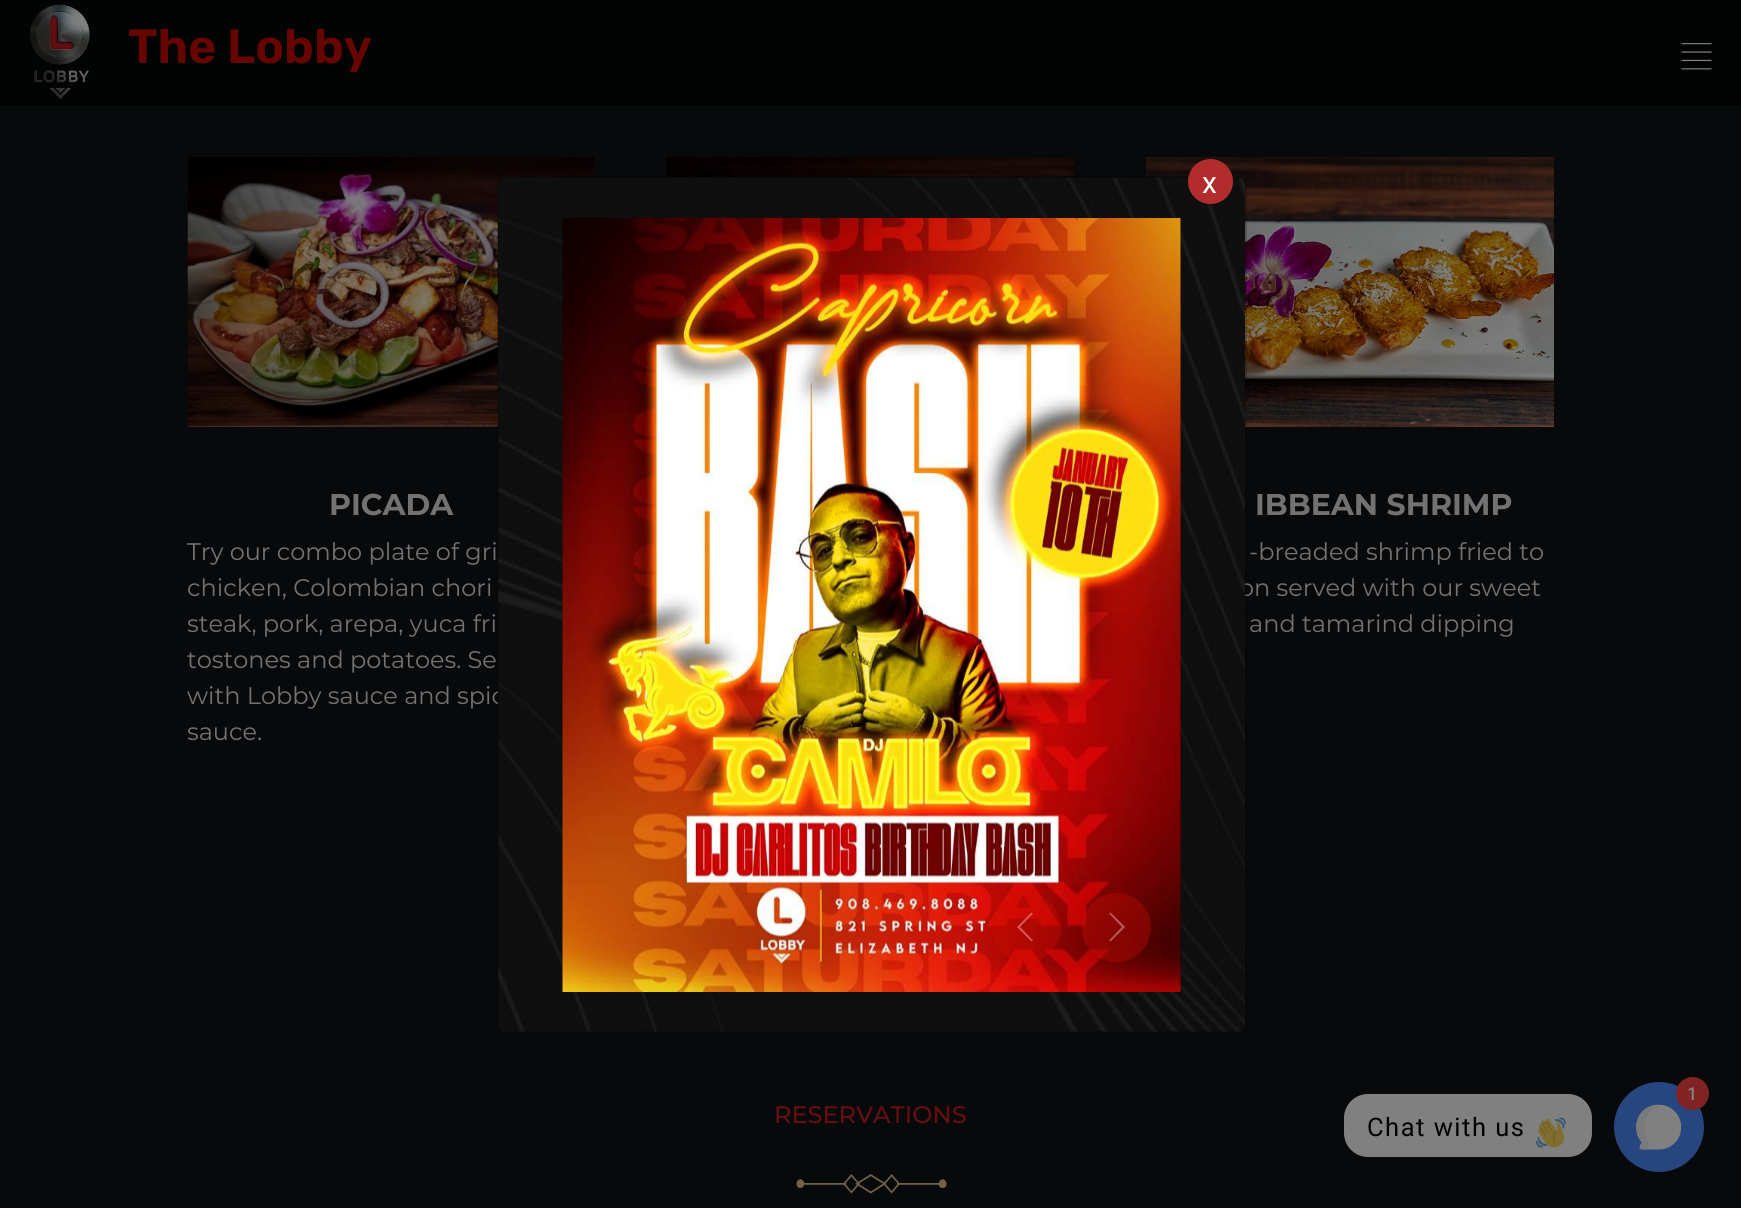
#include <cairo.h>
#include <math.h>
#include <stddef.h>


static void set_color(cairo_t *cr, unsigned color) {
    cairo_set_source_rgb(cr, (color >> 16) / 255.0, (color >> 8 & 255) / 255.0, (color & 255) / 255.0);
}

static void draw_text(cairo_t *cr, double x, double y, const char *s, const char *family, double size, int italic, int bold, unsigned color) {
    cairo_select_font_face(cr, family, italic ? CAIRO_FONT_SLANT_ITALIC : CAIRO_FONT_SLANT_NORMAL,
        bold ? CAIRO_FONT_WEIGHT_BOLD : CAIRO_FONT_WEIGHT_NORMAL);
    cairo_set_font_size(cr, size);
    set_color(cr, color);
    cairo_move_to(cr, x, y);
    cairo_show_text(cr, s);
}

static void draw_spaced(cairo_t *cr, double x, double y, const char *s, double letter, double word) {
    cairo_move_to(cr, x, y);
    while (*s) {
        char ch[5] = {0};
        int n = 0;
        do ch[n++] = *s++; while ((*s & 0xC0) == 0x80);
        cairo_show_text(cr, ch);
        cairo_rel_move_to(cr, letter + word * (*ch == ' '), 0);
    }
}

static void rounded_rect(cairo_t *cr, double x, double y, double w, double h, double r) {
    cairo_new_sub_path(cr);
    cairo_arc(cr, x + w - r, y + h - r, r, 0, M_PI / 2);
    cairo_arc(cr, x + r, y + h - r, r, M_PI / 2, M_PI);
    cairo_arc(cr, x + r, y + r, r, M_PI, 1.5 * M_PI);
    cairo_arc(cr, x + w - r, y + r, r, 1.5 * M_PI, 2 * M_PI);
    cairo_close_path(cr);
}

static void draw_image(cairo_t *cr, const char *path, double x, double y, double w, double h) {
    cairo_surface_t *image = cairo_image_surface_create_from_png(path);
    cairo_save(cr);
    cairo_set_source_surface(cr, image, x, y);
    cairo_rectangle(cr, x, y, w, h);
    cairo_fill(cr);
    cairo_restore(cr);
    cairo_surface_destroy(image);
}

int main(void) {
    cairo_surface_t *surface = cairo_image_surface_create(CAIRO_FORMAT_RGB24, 1741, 1208);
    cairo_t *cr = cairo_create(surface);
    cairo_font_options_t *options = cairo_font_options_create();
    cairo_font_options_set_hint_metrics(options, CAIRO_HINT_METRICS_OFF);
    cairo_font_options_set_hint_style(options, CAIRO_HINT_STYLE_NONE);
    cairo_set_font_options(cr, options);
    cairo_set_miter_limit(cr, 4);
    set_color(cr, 0x07090B);
    cairo_paint(cr);
    cairo_set_source_rgba(cr, 0, 0, 0, 0.7);
    cairo_rectangle(cr, 0, 0, 1741, 105);
    cairo_fill(cr);
    draw_image(cr, "assets/img1.png", 30, 4, 60, 95);
    draw_text(cr, 128, 63, "The Lobby", "Rubik SemiBold", 48, 0, 0, 0x670601);
    draw_image(cr, "assets/img2.png", 1681, 43, 31, 27);
    draw_image(cr, "assets/img3.png", 666, 157, 408, 20);
    draw_image(cr, "assets/img4.png", 187, 157, 407, 270);
    draw_text(cr, 329, 515, "PICADA", "Montserrat", 30, 0, 1, 0x727273);
    draw_text(cr, 187, 560, "Try our combo plate of gri", "Montserrat", 24, 0, 0, 0x727273);
    draw_text(cr, 187, 596, "chicken, Colombian chori", "Montserrat", 24, 0, 0, 0x727273);
    draw_text(cr, 187, 632, "steak, pork, arepa, yuca fri", "Montserrat", 24, 0, 0, 0x727273);
    draw_text(cr, 187, 668, "tostones and potatoes. Se", "Montserrat", 24, 0, 0, 0x727273);
    draw_text(cr, 187, 704, "with Lobby sauce and spic", "Montserrat", 24, 0, 0, 0x727273);
    draw_text(cr, 187, 740, "sauce.", "Montserrat", 24, 0, 0, 0x727273);
    draw_image(cr, "assets/img5.png", 1146, 157, 408, 270);
    draw_text(cr, 1255, 515, "IBBEAN SHRIMP", "Montserrat", 30, 0, 1, 0x727273);
    draw_text(cr, 1249, 560, "-breaded shrimp fried to", "Montserrat", 24, 0, 0, 0x727273);
    draw_text(cr, 1239, 596, "on served with our sweet", "Montserrat", 24, 0, 0, 0x727273);
    draw_text(cr, 1249, 632, "and tamarind dipping", "Montserrat", 24, 0, 0, 0x727273);
    draw_text(cr, 774, 1123, "RESERVATIONS", "Montserrat Medium", 24, 0, 0, 0x650F10);
    draw_image(cr, "assets/img6.png", 796, 1174, 151, 20);
    set_color(cr, 0x274680);
    cairo_arc(cr, 1659, 1127, 45, 0, 2 * M_PI);
    cairo_fill(cr);
    set_color(cr, 0x802323);
    cairo_arc(cr, 1692.5, 1093.5, 16.5, 0, 2 * M_PI);
    cairo_fill(cr);
    draw_text(cr, 1687, 1100, "1", "Roboto Medium", 18, 0, 0, 0x808080);
    draw_image(cr, "assets/img7.png", 1636, 1104, 46, 46);
    rounded_rect(cr, 1344, 1094, 248, 63, 24);
    cairo_fill(cr);
    cairo_select_font_face(cr, "Roboto", CAIRO_FONT_SLANT_NORMAL, CAIRO_FONT_WEIGHT_NORMAL);
    cairo_set_font_size(cr, 25.5);
    set_color(cr, 0x000000);
    draw_spaced(cr, 1367, 1136, "Chat with us", 1.5, 0);
    draw_image(cr, "assets/img8.png", 1536, 1117, 30, 31);
    set_color(cr, 0x0A0909);
    rounded_rect(cr, 498, 177, 747, 855, 6);
    cairo_fill(cr);
    draw_image(cr, "assets/img9.png", 498, 177, 747, 855);
    rounded_rect(cr, 498, 177, 748, 856, 7);
    cairo_set_source_rgba(cr, 0, 0, 0, 0.2);
    cairo_stroke(cr);
    set_color(cr, 0xB32C2C);
    cairo_arc(cr, 1210.5, 181.5, 22.5, 0, 2 * M_PI);
    cairo_fill(cr);
    cairo_set_font_size(cr, 30);
    set_color(cr, 0xFFFFFF);
    draw_spaced(cr, 1202, 193, "x", 1.5, 0);
    draw_image(cr, "assets/img10.png", 562, 218, 619, 774);
    cairo_set_source_rgba(cr, 0.804, 0.047, 0.008, 0.35);
    cairo_arc(cr, 1026.5, 927.5, 34.5, 0, 2 * M_PI);
    cairo_fill(cr);
    cairo_set_source_rgba(cr, 1, 1, 1, 0.35);
    cairo_new_path(cr);
    cairo_move_to(cr, 1017, 927);
    cairo_line_to(cr, 1031.5, 912.5);
    cairo_line_to(cr, 1033, 913.5);
    cairo_line_to(cr, 1020, 927);
    cairo_line_to(cr, 1033, 940.5);
    cairo_line_to(cr, 1031.5, 941.5);
    cairo_close_path(cr);
    cairo_fill(cr);
    cairo_set_source_rgba(cr, 0.804, 0.047, 0.008, 0.35);
    cairo_arc(cr, 1116.5, 927.5, 34.5, 0, 2 * M_PI);
    cairo_fill(cr);
    cairo_set_source_rgba(cr, 1, 1, 1, 0.35);
    cairo_new_path(cr);
    cairo_move_to(cr, 1125, 927);
    cairo_line_to(cr, 1110.5, 941.5);
    cairo_line_to(cr, 1109, 940.5);
    cairo_line_to(cr, 1122, 927);
    cairo_line_to(cr, 1109, 913.5);
    cairo_line_to(cr, 1110.5, 912.5);
    cairo_close_path(cr);
    cairo_fill(cr);
    cairo_surface_write_to_png(surface, "output.png");
    cairo_font_options_destroy(options);
    cairo_destroy(cr);
    cairo_surface_destroy(surface);
    return 0;
}
